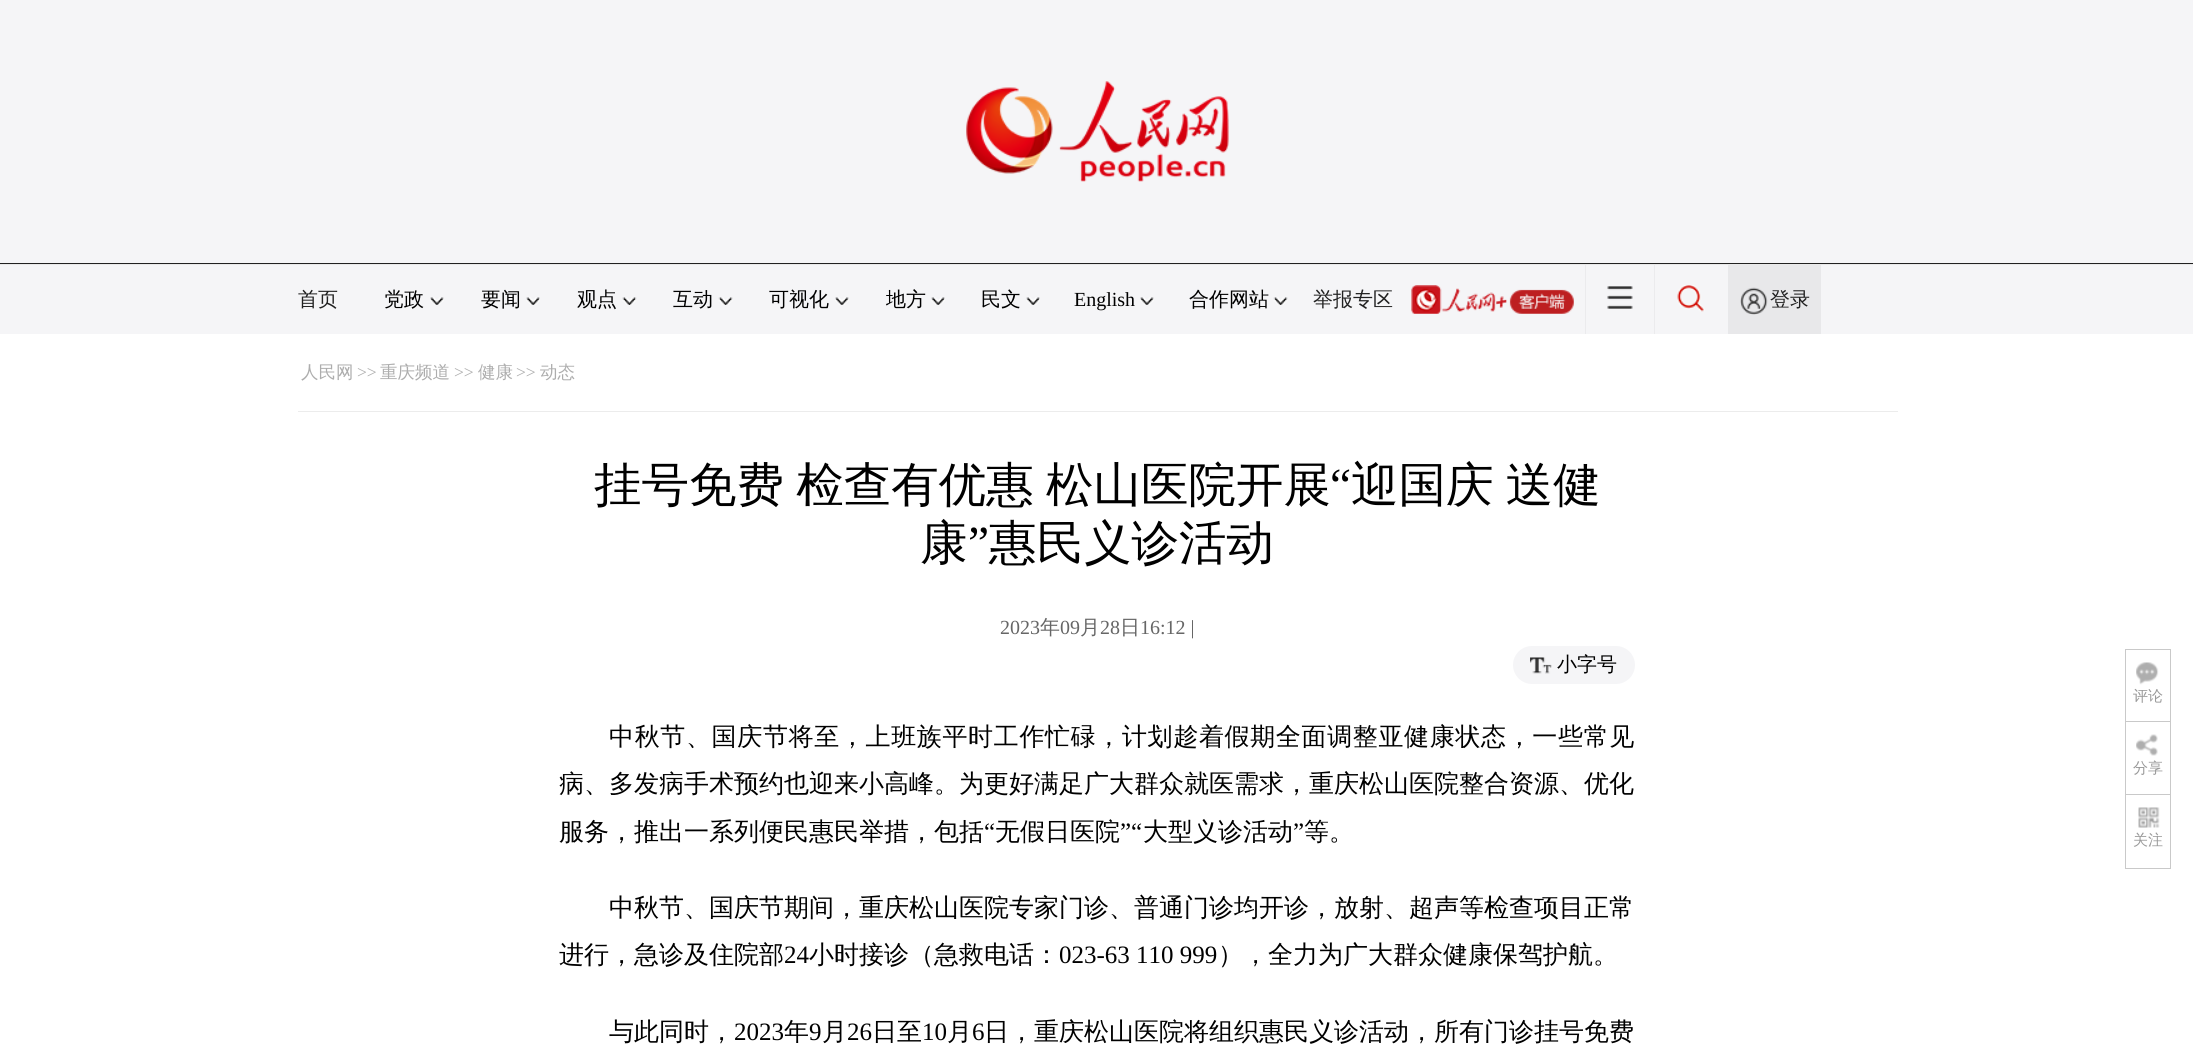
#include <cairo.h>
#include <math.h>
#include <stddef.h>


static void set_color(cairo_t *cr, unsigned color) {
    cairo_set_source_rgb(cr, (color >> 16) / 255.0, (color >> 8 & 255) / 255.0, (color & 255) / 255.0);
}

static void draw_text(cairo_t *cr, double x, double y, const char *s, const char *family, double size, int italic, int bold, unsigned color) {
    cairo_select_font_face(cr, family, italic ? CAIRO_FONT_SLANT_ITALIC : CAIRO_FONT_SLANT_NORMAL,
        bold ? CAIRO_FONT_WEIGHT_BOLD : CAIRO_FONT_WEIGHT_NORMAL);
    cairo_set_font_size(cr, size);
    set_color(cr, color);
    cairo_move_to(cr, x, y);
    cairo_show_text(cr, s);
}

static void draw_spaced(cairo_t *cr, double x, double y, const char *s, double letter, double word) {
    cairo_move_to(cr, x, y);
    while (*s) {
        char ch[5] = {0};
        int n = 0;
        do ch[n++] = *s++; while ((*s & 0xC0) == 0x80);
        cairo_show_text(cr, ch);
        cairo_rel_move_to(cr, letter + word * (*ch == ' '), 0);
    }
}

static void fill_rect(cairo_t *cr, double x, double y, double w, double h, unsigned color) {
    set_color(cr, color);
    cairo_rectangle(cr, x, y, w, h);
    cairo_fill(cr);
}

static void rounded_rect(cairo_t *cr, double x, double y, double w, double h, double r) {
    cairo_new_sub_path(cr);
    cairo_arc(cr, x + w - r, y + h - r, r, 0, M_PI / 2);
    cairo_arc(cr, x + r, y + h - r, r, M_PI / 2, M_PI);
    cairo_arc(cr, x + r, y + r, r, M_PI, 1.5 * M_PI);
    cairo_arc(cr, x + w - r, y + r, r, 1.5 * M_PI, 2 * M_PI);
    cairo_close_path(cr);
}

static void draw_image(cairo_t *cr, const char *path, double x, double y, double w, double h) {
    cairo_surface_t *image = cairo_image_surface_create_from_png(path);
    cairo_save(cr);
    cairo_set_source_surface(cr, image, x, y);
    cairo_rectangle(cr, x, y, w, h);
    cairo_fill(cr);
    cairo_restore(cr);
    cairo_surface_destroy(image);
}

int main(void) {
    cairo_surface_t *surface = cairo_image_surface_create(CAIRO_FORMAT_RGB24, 2193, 1050);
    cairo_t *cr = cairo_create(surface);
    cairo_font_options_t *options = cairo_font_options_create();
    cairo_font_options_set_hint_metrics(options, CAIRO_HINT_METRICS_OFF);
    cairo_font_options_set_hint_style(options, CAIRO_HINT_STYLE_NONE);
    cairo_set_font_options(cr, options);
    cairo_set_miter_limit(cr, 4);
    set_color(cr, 0xFFFFFF);
    cairo_paint(cr);
    fill_rect(cr, 0, 0, 2193, 263, 0xF5F5F7);
    fill_rect(cr, 0, 263, 2193, 1, 0x212121);
    draw_image(cr, "assets/img1.png", 966, 81, 263, 101);
    fill_rect(cr, 0, 264, 2193, 1, 0xE9E9E9);
    fill_rect(cr, 0, 265, 2193, 69, 0xF5F5F7);
    draw_text(cr, 298, 306, "首页", "WenQuanYi Zen Hei Medium", 20, 0, 0, 0x212121);
    draw_text(cr, 384, 306, "党政", "WenQuanYi Zen Hei Medium", 20, 0, 0, 0x000000);
    draw_image(cr, "assets/img2.png", 430, 297, 14, 8);
    draw_text(cr, 481, 306, "要闻", "WenQuanYi Zen Hei Medium", 20, 0, 0, 0x000000);
    draw_image(cr, "assets/img3.png", 526, 297, 14, 8);
    draw_text(cr, 577, 306, "观点", "WenQuanYi Zen Hei Medium", 20, 0, 0, 0x000000);
    draw_image(cr, "assets/img4.png", 622, 297, 15, 8);
    draw_text(cr, 673, 306, "互动", "WenQuanYi Zen Hei Medium", 20, 0, 0, 0x000000);
    draw_image(cr, "assets/img5.png", 718, 297, 15, 8);
    draw_text(cr, 769, 306, "可视化", "WenQuanYi Zen Hei Medium", 20, 0, 0, 0x000000);
    draw_image(cr, "assets/img2.png", 835, 297, 14, 8);
    draw_text(cr, 886, 306, "地方", "WenQuanYi Zen Hei Medium", 20, 0, 0, 0x000000);
    draw_image(cr, "assets/img3.png", 931, 297, 14, 8);
    draw_text(cr, 981, 306, "民文", "WenQuanYi Zen Hei Medium", 20, 0, 0, 0x000000);
    draw_image(cr, "assets/img3.png", 1026, 297, 14, 8);
    draw_text(cr, 1074, 306, "English", "Liberation Serif", 20, 0, 0, 0x000000);
    draw_image(cr, "assets/img2.png", 1140, 297, 14, 8);
    draw_text(cr, 1189, 306, "合作网站", "WenQuanYi Zen Hei Medium", 20, 0, 0, 0x000000);
    draw_image(cr, "assets/img6.png", 1273, 297, 15, 8);
    draw_text(cr, 1313, 306, "举报专区", "WenQuanYi Zen Hei Medium", 20, 0, 0, 0x212121);
    draw_image(cr, "assets/img7.png", 1411, 285, 163, 29);
    fill_rect(cr, 1654, 265, 1, 69, 0xEBEBED);
    fill_rect(cr, 1585, 265, 1, 69, 0xEBEBED);
    draw_image(cr, "assets/img8.png", 1607, 286, 26, 23);
    draw_image(cr, "assets/img9.png", 1677, 285, 28, 27);
    fill_rect(cr, 1728, 265, 93, 69, 0xE8E8EA);
    draw_image(cr, "assets/img10.png", 1740, 287, 28, 28);
    draw_text(cr, 1770, 306, "登录", "WenQuanYi Zen Hei Medium", 20, 0, 0, 0x212121);
    fill_rect(cr, 298, 411, 1600, 1, 0xECECEC);
    draw_text(cr, 301, 378, "人民网", "WenQuanYi Zen Hei Medium", 17.5, 0, 0, 0xADADAD);
    draw_text(cr, 357, 378, ">>", "Liberation Serif", 17.5, 0, 0, 0xADADAD);
    draw_text(cr, 380, 378, "重庆频道", "WenQuanYi Zen Hei Medium", 17.5, 0, 0, 0xADADAD);
    draw_text(cr, 454, 378, ">>", "Liberation Serif", 17.5, 0, 0, 0xADADAD);
    draw_text(cr, 478, 378, "健康", "WenQuanYi Zen Hei Medium", 17.5, 0, 0, 0xADADAD);
    draw_text(cr, 516, 378, ">>", "Liberation Serif", 17.5, 0, 0, 0xADADAD);
    draw_text(cr, 540, 378, "动态", "WenQuanYi Zen Hei Medium", 17.5, 0, 0, 0xADADAD);
    cairo_set_font_size(cr, 47.5);
    set_color(cr, 0x000000);
    draw_spaced(cr, 594, 501, "挂号免费 检查有优惠 松山医院开展", 0, -2);
    draw_text(cr, 1330, 501, "“", "Liberation Serif", 47.5, 0, 0, 0x000000);
    cairo_select_font_face(cr, "WenQuanYi Zen Hei Medium", CAIRO_FONT_SLANT_NORMAL, CAIRO_FONT_WEIGHT_NORMAL);
    draw_spaced(cr, 1351, 501, "迎国庆 送健", 0, -2);
    draw_text(cr, 920, 559, "康", "WenQuanYi Zen Hei Medium", 47.5, 0, 0, 0x000000);
    draw_text(cr, 968, 559, "”", "Liberation Serif", 47.5, 0, 0, 0x000000);
    draw_text(cr, 989, 559, "惠民义诊活动", "WenQuanYi Zen Hei Medium", 47.5, 0, 0, 0x000000);
    draw_text(cr, 1000, 634, "2023", "Liberation Serif", 20, 0, 0, 0x666666);
    draw_text(cr, 1040, 634, "年", "WenQuanYi Zen Hei Medium", 20, 0, 0, 0x666666);
    draw_text(cr, 1060, 634, "09", "Liberation Serif", 20, 0, 0, 0x666666);
    draw_text(cr, 1080, 634, "月", "WenQuanYi Zen Hei Medium", 20, 0, 0, 0x666666);
    draw_text(cr, 1100, 634, "28", "Liberation Serif", 20, 0, 0, 0x666666);
    draw_text(cr, 1120, 634, "日", "WenQuanYi Zen Hei Medium", 20, 0, 0, 0x666666);
    draw_text(cr, 1140, 634, "16:12 |", "Liberation Serif", 20, 0, 0, 0x666666);
    set_color(cr, 0xF5F5F7);
    rounded_rect(cr, 1513, 646, 122, 38, 19);
    cairo_fill(cr);
    draw_image(cr, "assets/img11.png", 1530, 657, 22, 17);
    draw_text(cr, 1557, 671, "小字号", "WenQuanYi Zen Hei Medium", 20, 0, 0, 0x000000);
    cairo_set_font_size(cr, 25);
    draw_spaced(cr, 609, 745, "中秋节、国庆节将至，上班族平时工作忙碌，计划趁着假期全面调整亚健康状态，一些常见", 0.65, 0);
    draw_text(cr, 559, 792, "病、多发病手术预约也迎来小高峰。为更好满足广大群众就医需求，重庆松山医院整合资源、优化", "WenQuanYi Zen Hei Medium", 25, 0, 0, 0x000000);
    draw_text(cr, 559, 840, "服务，推出一系列便民惠民举措，包括", "WenQuanYi Zen Hei Medium", 25, 0, 0, 0x000000);
    draw_text(cr, 984, 840, "“", "Liberation Serif", 25, 0, 0, 0x000000);
    draw_text(cr, 995, 840, "无假日医院", "WenQuanYi Zen Hei Medium", 25, 0, 0, 0x000000);
    draw_text(cr, 1120, 840, "”“", "Liberation Serif", 25, 0, 0, 0x000000);
    draw_text(cr, 1143, 840, "大型义诊活动", "WenQuanYi Zen Hei Medium", 25, 0, 0, 0x000000);
    draw_text(cr, 1293, 840, "”", "Liberation Serif", 25, 0, 0, 0x000000);
    draw_text(cr, 1304, 840, "等。", "WenQuanYi Zen Hei Medium", 25, 0, 0, 0x000000);
    draw_text(cr, 609, 916, "中秋节、国庆节期间，重庆松山医院专家门诊、普通门诊均开诊，放射、超声等检查项目正常", "WenQuanYi Zen Hei Medium", 25, 0, 0, 0x000000);
    draw_text(cr, 559, 963, "进行，急诊及住院部", "WenQuanYi Zen Hei Medium", 25, 0, 0, 0x000000);
    draw_text(cr, 784, 963, "24", "Liberation Serif", 25, 0, 0, 0x000000);
    draw_text(cr, 809, 963, "小时接诊（急救电话：", "WenQuanYi Zen Hei Medium", 25, 0, 0, 0x000000);
    draw_text(cr, 1059, 963, "023-63 110 999", "Liberation Serif", 25, 0, 0, 0x000000);
    draw_text(cr, 1218, 963, "），全力为广大群众健康保驾护航。", "WenQuanYi Zen Hei Medium", 25, 0, 0, 0x000000);
    draw_text(cr, 609, 1040, "与此同时，", "WenQuanYi Zen Hei Medium", 25, 0, 0, 0x000000);
    draw_text(cr, 734, 1040, "2023", "Liberation Serif", 25, 0, 0, 0x000000);
    draw_text(cr, 784, 1040, "年", "WenQuanYi Zen Hei Medium", 25, 0, 0, 0x000000);
    draw_text(cr, 809, 1040, "9", "Liberation Serif", 25, 0, 0, 0x000000);
    draw_text(cr, 822, 1040, "月", "WenQuanYi Zen Hei Medium", 25, 0, 0, 0x000000);
    draw_text(cr, 847, 1040, "26", "Liberation Serif", 25, 0, 0, 0x000000);
    draw_text(cr, 872, 1040, "日至", "WenQuanYi Zen Hei Medium", 25, 0, 0, 0x000000);
    draw_text(cr, 922, 1040, "10", "Liberation Serif", 25, 0, 0, 0x000000);
    draw_text(cr, 947, 1040, "月", "WenQuanYi Zen Hei Medium", 25, 0, 0, 0x000000);
    draw_text(cr, 972, 1040, "6", "Liberation Serif", 25, 0, 0, 0x000000);
    draw_text(cr, 984, 1040, "日，重庆松山医院将组织惠民义诊活动，所有门诊挂号免费", "WenQuanYi Zen Hei Medium", 25, 0, 0, 0x000000);
    cairo_save(cr);
    cairo_rectangle(cr, 2125, 649, 46, 72);
    cairo_clip(cr);
    cairo_rectangle(cr, 2125.5, 649.5, 45, 75);
    set_color(cr, 0xC9C9C9);
    cairo_set_line_width(cr, 1);
    cairo_stroke(cr);
    cairo_restore(cr);
    draw_image(cr, "assets/img12.png", 2136, 662, 23, 23);
    draw_text(cr, 2133, 701, "评论", "WenQuanYi Zen Hei Medium", 15, 0, 0, 0x999999);
    cairo_save(cr);
    cairo_rectangle(cr, 2125, 721, 46, 73);
    cairo_clip(cr);
    cairo_rectangle(cr, 2125.5, 721.5, 45, 74);
    set_color(cr, 0xC9C9C9);
    cairo_set_line_width(cr, 1);
    cairo_stroke(cr);
    cairo_restore(cr);
    draw_image(cr, "assets/img13.png", 2136, 734, 22, 22);
    draw_text(cr, 2133, 773, "分享", "WenQuanYi Zen Hei Medium", 15, 0, 0, 0x999999);
    cairo_rectangle(cr, 2125.5, 794.5, 45, 74);
    set_color(cr, 0xC9C9C9);
    cairo_set_line_width(cr, 1);
    cairo_stroke(cr);
    draw_image(cr, "assets/img14.png", 2138, 807, 22, 21);
    draw_text(cr, 2133, 845, "关注", "WenQuanYi Zen Hei Medium", 15, 0, 0, 0x999999);
    cairo_surface_write_to_png(surface, "output.png");
    cairo_font_options_destroy(options);
    cairo_destroy(cr);
    cairo_surface_destroy(surface);
    return 0;
}
